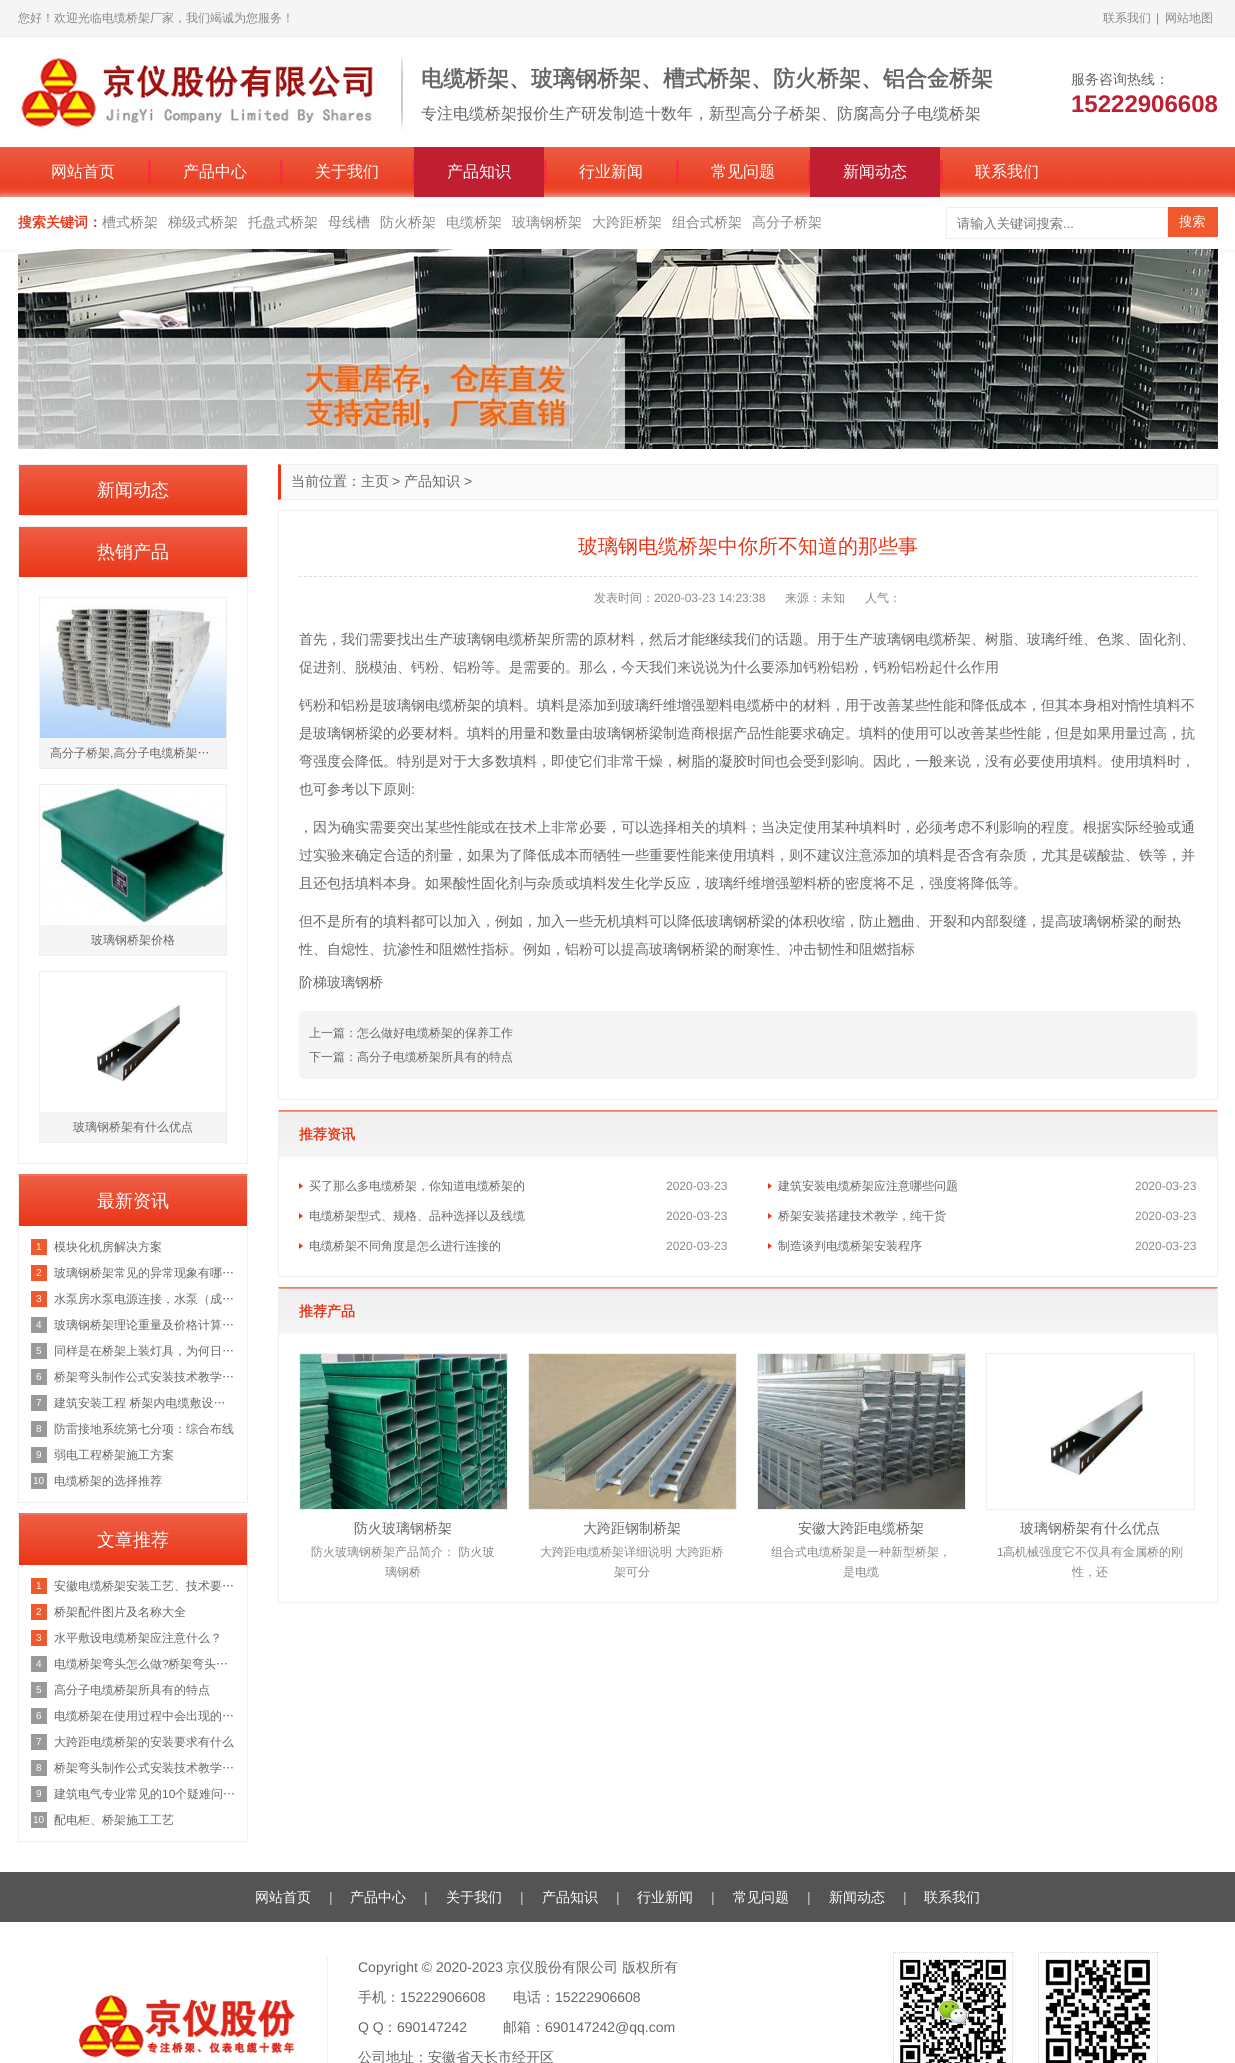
#include <cairo.h>
#include <math.h>
#include <stddef.h>


static void set_color(cairo_t *cr, unsigned color) {
    cairo_set_source_rgb(cr, (color >> 16) / 255.0, (color >> 8 & 255) / 255.0, (color & 255) / 255.0);
}

static void draw_text(cairo_t *cr, double x, double y, const char *s, const char *family, double size, int italic, int bold, unsigned color) {
    cairo_select_font_face(cr, family, italic ? CAIRO_FONT_SLANT_ITALIC : CAIRO_FONT_SLANT_NORMAL,
        bold ? CAIRO_FONT_WEIGHT_BOLD : CAIRO_FONT_WEIGHT_NORMAL);
    cairo_set_font_size(cr, size);
    set_color(cr, color);
    cairo_move_to(cr, x, y);
    cairo_show_text(cr, s);
}

static void fill_rect(cairo_t *cr, double x, double y, double w, double h, unsigned color) {
    set_color(cr, color);
    cairo_rectangle(cr, x, y, w, h);
    cairo_fill(cr);
}

static void rounded_rect(cairo_t *cr, double x, double y, double w, double h, double r) {
    cairo_new_sub_path(cr);
    cairo_arc(cr, x + w - r, y + h - r, r, 0, M_PI / 2);
    cairo_arc(cr, x + r, y + h - r, r, M_PI / 2, M_PI);
    cairo_arc(cr, x + r, y + r, r, M_PI, 1.5 * M_PI);
    cairo_arc(cr, x + w - r, y + r, r, 1.5 * M_PI, 2 * M_PI);
    cairo_close_path(cr);
}

static void draw_shadow(cairo_t *cr, double x, double y, double w, double h, double r, double blur, double alpha) {
    cairo_push_group_with_content(cr, CAIRO_CONTENT_ALPHA);
    cairo_set_operator(cr, CAIRO_OPERATOR_SOURCE);
    for (int i = 15; i >= -15 && fmin(w, h) + blur * i / 3 > 0; i -= 2) {
        double e = blur * i / 6;
        cairo_set_source_rgba(cr, 0, 0, 0, alpha * erfc((i - 1) / 8.5) / 2);
        rounded_rect(cr, x - e, y - e, w + 2 * e, h + 2 * e, fmax(0, fmin(r + e + blur * .6, fmin(w, h) / 2 + e)));
        cairo_fill(cr);
    }
    cairo_pattern_t *soft = cairo_pop_group(cr);
    cairo_mask(cr, soft);
    cairo_pattern_destroy(soft);
}

static void draw_image(cairo_t *cr, const char *path, double x, double y, double w, double h) {
    cairo_surface_t *image = cairo_image_surface_create_from_png(path);
    cairo_save(cr);
    cairo_set_source_surface(cr, image, x, y);
    cairo_rectangle(cr, x, y, w, h);
    cairo_fill(cr);
    cairo_restore(cr);
    cairo_surface_destroy(image);
}

int main(void) {
    cairo_surface_t *surface = cairo_image_surface_create(CAIRO_FORMAT_RGB24, 1235, 2063);
    cairo_t *cr = cairo_create(surface);
    cairo_font_options_t *options = cairo_font_options_create();
    cairo_font_options_set_hint_metrics(options, CAIRO_HINT_METRICS_OFF);
    cairo_font_options_set_hint_style(options, CAIRO_HINT_STYLE_NONE);
    cairo_set_font_options(cr, options);
    cairo_set_miter_limit(cr, 4);
    cairo_pattern_t *gradient;
    set_color(cr, 0xFFFFFF);
    cairo_paint(cr);
    fill_rect(cr, 0, 0, 1235, 36, 0xF5F5F5);
    fill_rect(cr, 0, 36, 1235, 1, 0xEEEEEE);
    draw_text(cr, 18, 22, "您好！欢迎光临电缆桥架厂家，我们竭诚为您服务！", "WenQuanYi Zen Hei Medium", 12, 0, 0, 0x888888);
    draw_text(cr, 1103, 22, "联系我们", "WenQuanYi Zen Hei Medium", 12, 0, 0, 0x888888);
    draw_text(cr, 1156, 22, "|", "Liberation Sans", 12, 0, 0, 0x888888);
    draw_text(cr, 1165, 22, "网站地图", "WenQuanYi Zen Hei Medium", 12, 0, 0, 0x888888);
    draw_image(cr, "assets/img1.png", 20, 56, 356, 76);
    draw_image(cr, "assets/img2.png", 401, 54, 2, 77);
    draw_text(cr, 421, 86, "电缆桥架、玻璃钢桥架、槽式桥架、防火桥架、铝合金桥架", "WenQuanYi Zen Hei", 22, 0, 1, 0x666666);
    draw_text(cr, 421, 119, "专注电缆桥架报价生产研发制造十数年，新型高分子桥架、防腐高分子电缆桥架", "WenQuanYi Zen Hei Medium", 16, 0, 0, 0x666666);
    draw_text(cr, 1071, 84, "服务咨询热线：", "WenQuanYi Zen Hei Medium", 14, 0, 0, 0x666666);
    draw_text(cr, 1071, 112, "15222906608", "Liberation Sans", 24, 0, 1, 0xC01F31);
    draw_image(cr, "assets/img3.png", 0, 147, 1235, 50);
    draw_text(cr, 51, 177, "网站首页", "WenQuanYi Zen Hei Medium", 16, 0, 0, 0xFFFFFF);
    cairo_save(cr);
    cairo_set_fill_rule(cr, CAIRO_FILL_RULE_EVEN_ODD);
    cairo_new_path(cr);
    cairo_move_to(cr, 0, 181);
    cairo_line_to(cr, 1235, 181);
    cairo_line_to(cr, 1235, 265);
    cairo_line_to(cr, 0, 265);
    cairo_close_path(cr);
    cairo_move_to(cr, 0, 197);
    cairo_line_to(cr, 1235, 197);
    cairo_line_to(cr, 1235, 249);
    cairo_line_to(cr, 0, 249);
    cairo_close_path(cr);
    cairo_clip(cr);
    set_color(cr, 0xEEEEEE);
    draw_shadow(cr, 0, 197, 1235, 52, 0, 5, 1);
    cairo_restore(cr);
    cairo_set_source_rgba(cr, 0.949, 0.149, 0.247, 0.6);
    cairo_rectangle(cr, 148, 160, 3, 24);
    cairo_fill(cr);
    draw_text(cr, 183, 177, "产品中心", "WenQuanYi Zen Hei Medium", 16, 0, 0, 0xFFFFFF);
    cairo_set_source_rgba(cr, 0.953, 0.157, 0.247, 0.6);
    cairo_rectangle(cr, 280, 160, 3, 24);
    cairo_fill(cr);
    draw_text(cr, 315, 177, "关于我们", "WenQuanYi Zen Hei Medium", 16, 0, 0, 0xFFFFFF);
    cairo_set_source_rgba(cr, 0.953, 0.157, 0.247, 0.6);
    cairo_rectangle(cr, 412, 160, 2, 24);
    cairo_fill(cr);
    fill_rect(cr, 414, 147, 130, 50, 0xC01F31);
    draw_text(cr, 447, 177, "产品知识", "WenQuanYi Zen Hei Medium", 16, 0, 0, 0xFFFFFF);
    cairo_set_source_rgba(cr, 0.953, 0.157, 0.247, 0.6);
    cairo_rectangle(cr, 544, 160, 3, 24);
    cairo_fill(cr);
    draw_text(cr, 579, 177, "行业新闻", "WenQuanYi Zen Hei Medium", 16, 0, 0, 0xFFFFFF);
    cairo_set_source_rgba(cr, 0.953, 0.157, 0.247, 0.6);
    cairo_rectangle(cr, 676, 160, 3, 24);
    cairo_fill(cr);
    draw_text(cr, 711, 177, "常见问题", "WenQuanYi Zen Hei Medium", 16, 0, 0, 0xFFFFFF);
    cairo_set_source_rgba(cr, 0.949, 0.149, 0.247, 0.6);
    cairo_rectangle(cr, 808, 160, 2, 24);
    cairo_fill(cr);
    fill_rect(cr, 810, 147, 130, 50, 0xC01F31);
    draw_text(cr, 843, 177, "新闻动态", "WenQuanYi Zen Hei Medium", 16, 0, 0, 0xFFFFFF);
    cairo_set_source_rgba(cr, 0.949, 0.149, 0.247, 0.6);
    cairo_rectangle(cr, 940, 160, 3, 24);
    cairo_fill(cr);
    draw_text(cr, 975, 177, "联系我们", "WenQuanYi Zen Hei Medium", 16, 0, 0, 0xFFFFFF);
    draw_text(cr, 18, 227, "搜索关键词：", "WenQuanYi Zen Hei", 14, 0, 1, 0xEA3516);
    draw_text(cr, 102, 227, "槽式桥架", "WenQuanYi Zen Hei Medium", 14, 0, 0, 0x888888);
    draw_text(cr, 168, 227, "梯级式桥架", "WenQuanYi Zen Hei Medium", 14, 0, 0, 0x888888);
    draw_text(cr, 248, 227, "托盘式桥架", "WenQuanYi Zen Hei Medium", 14, 0, 0, 0x888888);
    draw_text(cr, 328, 227, "母线槽", "WenQuanYi Zen Hei Medium", 14, 0, 0, 0x888888);
    draw_text(cr, 380, 227, "防火桥架", "WenQuanYi Zen Hei Medium", 14, 0, 0, 0x888888);
    draw_text(cr, 446, 227, "电缆桥架", "WenQuanYi Zen Hei Medium", 14, 0, 0, 0x888888);
    draw_text(cr, 512, 227, "玻璃钢桥架", "WenQuanYi Zen Hei Medium", 14, 0, 0, 0x888888);
    draw_text(cr, 592, 227, "大跨距桥架", "WenQuanYi Zen Hei Medium", 14, 0, 0, 0x888888);
    draw_text(cr, 672, 227, "组合式桥架", "WenQuanYi Zen Hei Medium", 14, 0, 0, 0x888888);
    draw_text(cr, 752, 227, "高分子桥架", "WenQuanYi Zen Hei Medium", 14, 0, 0, 0x888888);
    cairo_rectangle(cr, 946.5, 207.5, 221, 31);
    set_color(cr, 0xEEEEEE);
    cairo_set_line_width(cr, 1);
    cairo_stroke(cr);
    draw_text(cr, 957, 228, "请输入关键词搜索", "WenQuanYi Zen Hei Medium", 13.25, 0, 0, 0x757575);
    draw_text(cr, 1063, 228, "...", "Liberation Sans", 13.25, 0, 0, 0x757575);
    fill_rect(cr, 1168, 207, 50, 30, 0xF0592D);
    draw_text(cr, 1179, 226, "搜索", "WenQuanYi Zen Hei Medium", 13.25, 0, 0, 0xFFFFFF);
    draw_image(cr, "assets/img4.png", 18, 249, 1200, 200);
    cairo_rectangle(cr, 18.5, 464.5, 229, 51);
    set_color(cr, 0xEFEFEF);
    cairo_stroke(cr);
    gradient = cairo_pattern_create_linear(133, 515, 133, 465);
    cairo_pattern_add_color_stop_rgba(gradient, 0, 0.918, 0.208, 0.086, 1);
    cairo_pattern_add_color_stop_rgba(gradient, 1, 0.933, 0.369, 0.271, 1);
    cairo_set_source(cr, gradient);
    cairo_pattern_destroy(gradient);
    cairo_rectangle(cr, 19, 465, 228, 50);
    cairo_fill(cr);
    draw_text(cr, 97, 496, "新闻动态", "WenQuanYi Zen Hei Medium", 18, 0, 0, 0xFFFFFF);
    cairo_rectangle(cr, 18.5, 526.5, 229, 637);
    set_color(cr, 0xEFEFEF);
    cairo_stroke(cr);
    gradient = cairo_pattern_create_linear(133, 577, 133, 527);
    cairo_pattern_add_color_stop_rgba(gradient, 0, 0.918, 0.208, 0.086, 1);
    cairo_pattern_add_color_stop_rgba(gradient, 1, 0.933, 0.369, 0.271, 1);
    cairo_set_source(cr, gradient);
    cairo_pattern_destroy(gradient);
    cairo_rectangle(cr, 19, 527, 228, 50);
    cairo_fill(cr);
    draw_text(cr, 97, 558, "热销产品", "WenQuanYi Zen Hei Medium", 18, 0, 0, 0xFFFFFF);
    cairo_rectangle(cr, 39.5, 597.5, 187, 171);
    set_color(cr, 0xEEEEEE);
    cairo_stroke(cr);
    draw_image(cr, "assets/img5.png", 40, 604, 186, 134);
    fill_rect(cr, 40, 738, 186, 30, 0xF5F5F5);
    draw_text(cr, 50, 757, "高分子桥架 高分子电缆桥架…", "WenQuanYi Zen Hei Medium", 12, 0, 0, 0x666666);
    draw_text(cr, 110, 757, ",", "Liberation Sans", 12, 0, 0, 0x666666);
    cairo_rectangle(cr, 39.5, 784.5, 187, 171);
    set_color(cr, 0xEEEEEE);
    cairo_stroke(cr);
    draw_image(cr, "assets/img6.png", 40, 785, 186, 140);
    fill_rect(cr, 40, 925, 186, 30, 0xF5F5F5);
    draw_text(cr, 91, 944, "玻璃钢桥架价格", "WenQuanYi Zen Hei Medium", 12, 0, 0, 0x666666);
    cairo_rectangle(cr, 39.5, 971.5, 187, 171);
    set_color(cr, 0xEEEEEE);
    cairo_stroke(cr);
    draw_image(cr, "assets/img7.png", 97, 1004, 83, 78);
    fill_rect(cr, 40, 1112, 186, 30, 0xF5F5F5);
    draw_text(cr, 73, 1131, "玻璃钢桥架有什么优点", "WenQuanYi Zen Hei Medium", 12, 0, 0, 0x666666);
    set_color(cr, 0xF0725C);
    cairo_new_path(cr);
    cairo_move_to(cr, 18, 1174);
    cairo_line_to(cr, 248, 1174);
    cairo_line_to(cr, 247, 1176);
    cairo_line_to(cr, 19, 1176);
    cairo_close_path(cr);
    cairo_fill(cr);
    set_color(cr, 0xEFEFEF);
    cairo_new_path(cr);
    cairo_move_to(cr, 248, 1174);
    cairo_line_to(cr, 248, 1503);
    cairo_line_to(cr, 247, 1502);
    cairo_line_to(cr, 247, 1176);
    cairo_close_path(cr);
    cairo_fill(cr);
    fill_rect(cr, 18, 1502, 230, 1, 0xEFEFEF);
    cairo_new_path(cr);
    cairo_move_to(cr, 18, 1503);
    cairo_line_to(cr, 18, 1174);
    cairo_line_to(cr, 19, 1176);
    cairo_line_to(cr, 19, 1502);
    cairo_close_path(cr);
    cairo_fill(cr);
    gradient = cairo_pattern_create_linear(133, 1226, 133, 1176);
    cairo_pattern_add_color_stop_rgba(gradient, 0, 0.918, 0.208, 0.086, 1);
    cairo_pattern_add_color_stop_rgba(gradient, 1, 0.933, 0.369, 0.271, 1);
    cairo_set_source(cr, gradient);
    cairo_pattern_destroy(gradient);
    cairo_rectangle(cr, 19, 1176, 228, 50);
    cairo_fill(cr);
    draw_text(cr, 97, 1207, "最新资讯", "WenQuanYi Zen Hei Medium", 18, 0, 0, 0xFFFFFF);
    fill_rect(cr, 31, 1239, 16, 16, 0xF0592D);
    draw_text(cr, 36, 1250, "1", "Liberation Sans", 10, 0, 0, 0xFFFFFF);
    draw_text(cr, 54, 1251, "模块化机房解决方案", "WenQuanYi Zen Hei Medium", 12, 0, 0, 0x666666);
    fill_rect(cr, 31, 1265, 16, 16, 0xF0592D);
    draw_text(cr, 36, 1276, "2", "Liberation Sans", 10, 0, 0, 0xFFFFFF);
    draw_text(cr, 54, 1277, "玻璃钢桥架常见的异常现象有哪…", "WenQuanYi Zen Hei Medium", 12, 0, 0, 0x666666);
    fill_rect(cr, 31, 1291, 16, 16, 0xF0592D);
    draw_text(cr, 36, 1302, "3", "Liberation Sans", 10, 0, 0, 0xFFFFFF);
    draw_text(cr, 54, 1303, "水泵房水泵电源连接，水泵（成…", "WenQuanYi Zen Hei Medium", 12, 0, 0, 0x666666);
    fill_rect(cr, 31, 1317, 16, 16, 0x999999);
    draw_text(cr, 36, 1328, "4", "Liberation Sans", 10, 0, 0, 0xFFFFFF);
    draw_text(cr, 54, 1329, "玻璃钢桥架理论重量及价格计算…", "WenQuanYi Zen Hei Medium", 12, 0, 0, 0x666666);
    fill_rect(cr, 31, 1343, 16, 16, 0x999999);
    draw_text(cr, 36, 1354, "5", "Liberation Sans", 10, 0, 0, 0xFFFFFF);
    draw_text(cr, 54, 1355, "同样是在桥架上装灯具，为何日…", "WenQuanYi Zen Hei Medium", 12, 0, 0, 0x666666);
    fill_rect(cr, 31, 1369, 16, 16, 0x999999);
    draw_text(cr, 36, 1380, "6", "Liberation Sans", 10, 0, 0, 0xFFFFFF);
    draw_text(cr, 54, 1381, "桥架弯头制作公式安装技术教学…", "WenQuanYi Zen Hei Medium", 12, 0, 0, 0x666666);
    fill_rect(cr, 31, 1395, 16, 16, 0x999999);
    draw_text(cr, 36, 1406, "7", "Liberation Sans", 10, 0, 0, 0xFFFFFF);
    draw_text(cr, 54, 1407, "建筑安装工程 桥架内电缆敷设…", "WenQuanYi Zen Hei Medium", 12, 0, 0, 0x666666);
    fill_rect(cr, 31, 1421, 16, 16, 0x999999);
    draw_text(cr, 36, 1432, "8", "Liberation Sans", 10, 0, 0, 0xFFFFFF);
    draw_text(cr, 54, 1433, "防雷接地系统第七分项：综合布线", "WenQuanYi Zen Hei Medium", 12, 0, 0, 0x666666);
    fill_rect(cr, 31, 1447, 16, 16, 0x999999);
    draw_text(cr, 36, 1458, "9", "Liberation Sans", 10, 0, 0, 0xFFFFFF);
    draw_text(cr, 54, 1459, "弱电工程桥架施工方案", "WenQuanYi Zen Hei Medium", 12, 0, 0, 0x666666);
    fill_rect(cr, 31, 1473, 16, 16, 0x999999);
    draw_text(cr, 33, 1484, "10", "Liberation Sans", 10, 0, 0, 0xFFFFFF);
    draw_text(cr, 54, 1485, "电缆桥架的选择推荐", "WenQuanYi Zen Hei Medium", 12, 0, 0, 0x666666);
    set_color(cr, 0xF0725C);
    cairo_new_path(cr);
    cairo_move_to(cr, 18, 1513);
    cairo_line_to(cr, 248, 1513);
    cairo_line_to(cr, 247, 1515);
    cairo_line_to(cr, 19, 1515);
    cairo_close_path(cr);
    cairo_fill(cr);
    set_color(cr, 0xEFEFEF);
    cairo_new_path(cr);
    cairo_move_to(cr, 248, 1513);
    cairo_line_to(cr, 248, 1842);
    cairo_line_to(cr, 247, 1841);
    cairo_line_to(cr, 247, 1515);
    cairo_close_path(cr);
    cairo_fill(cr);
    fill_rect(cr, 18, 1841, 230, 1, 0xEFEFEF);
    cairo_new_path(cr);
    cairo_move_to(cr, 18, 1842);
    cairo_line_to(cr, 18, 1513);
    cairo_line_to(cr, 19, 1515);
    cairo_line_to(cr, 19, 1841);
    cairo_close_path(cr);
    cairo_fill(cr);
    gradient = cairo_pattern_create_linear(133, 1565, 133, 1515);
    cairo_pattern_add_color_stop_rgba(gradient, 0, 0.918, 0.208, 0.086, 1);
    cairo_pattern_add_color_stop_rgba(gradient, 1, 0.933, 0.369, 0.271, 1);
    cairo_set_source(cr, gradient);
    cairo_pattern_destroy(gradient);
    cairo_rectangle(cr, 19, 1515, 228, 50);
    cairo_fill(cr);
    draw_text(cr, 97, 1546, "文章推荐", "WenQuanYi Zen Hei Medium", 18, 0, 0, 0xFFFFFF);
    fill_rect(cr, 31, 1578, 16, 16, 0xF0592D);
    draw_text(cr, 36, 1589, "1", "Liberation Sans", 10, 0, 0, 0xFFFFFF);
    draw_text(cr, 54, 1590, "安徽电缆桥架安装工艺、技术要…", "WenQuanYi Zen Hei Medium", 12, 0, 0, 0x666666);
    fill_rect(cr, 31, 1604, 16, 16, 0xF0592D);
    draw_text(cr, 36, 1615, "2", "Liberation Sans", 10, 0, 0, 0xFFFFFF);
    draw_text(cr, 54, 1616, "桥架配件图片及名称大全", "WenQuanYi Zen Hei Medium", 12, 0, 0, 0x666666);
    fill_rect(cr, 31, 1630, 16, 16, 0xF0592D);
    draw_text(cr, 36, 1641, "3", "Liberation Sans", 10, 0, 0, 0xFFFFFF);
    draw_text(cr, 54, 1642, "水平敷设电缆桥架应注意什么？", "WenQuanYi Zen Hei Medium", 12, 0, 0, 0x666666);
    fill_rect(cr, 31, 1656, 16, 16, 0x999999);
    draw_text(cr, 36, 1667, "4", "Liberation Sans", 10, 0, 0, 0xFFFFFF);
    draw_text(cr, 54, 1668, "电缆桥架弯头怎么做", "WenQuanYi Zen Hei Medium", 12, 0, 0, 0x666666);
    draw_text(cr, 162, 1668, "?", "Liberation Sans", 12, 0, 0, 0x666666);
    draw_text(cr, 168, 1668, "桥架弯头…", "WenQuanYi Zen Hei Medium", 12, 0, 0, 0x666666);
    fill_rect(cr, 31, 1682, 16, 16, 0x999999);
    draw_text(cr, 36, 1693, "5", "Liberation Sans", 10, 0, 0, 0xFFFFFF);
    draw_text(cr, 54, 1694, "高分子电缆桥架所具有的特点", "WenQuanYi Zen Hei Medium", 12, 0, 0, 0x666666);
    fill_rect(cr, 31, 1708, 16, 16, 0x999999);
    draw_text(cr, 36, 1719, "6", "Liberation Sans", 10, 0, 0, 0xFFFFFF);
    draw_text(cr, 54, 1720, "电缆桥架在使用过程中会出现的…", "WenQuanYi Zen Hei Medium", 12, 0, 0, 0x666666);
    fill_rect(cr, 31, 1734, 16, 16, 0x999999);
    draw_text(cr, 36, 1745, "7", "Liberation Sans", 10, 0, 0, 0xFFFFFF);
    draw_text(cr, 54, 1746, "大跨距电缆桥架的安装要求有什么", "WenQuanYi Zen Hei Medium", 12, 0, 0, 0x666666);
    fill_rect(cr, 31, 1760, 16, 16, 0x999999);
    draw_text(cr, 36, 1771, "8", "Liberation Sans", 10, 0, 0, 0xFFFFFF);
    draw_text(cr, 54, 1772, "桥架弯头制作公式安装技术教学…", "WenQuanYi Zen Hei Medium", 12, 0, 0, 0x666666);
    fill_rect(cr, 31, 1786, 16, 16, 0x999999);
    draw_text(cr, 36, 1797, "9", "Liberation Sans", 10, 0, 0, 0xFFFFFF);
    draw_text(cr, 54, 1798, "建筑电气专业常见的", "WenQuanYi Zen Hei Medium", 12, 0, 0, 0x666666);
    draw_text(cr, 162, 1798, "10", "Liberation Sans", 12, 0, 0, 0x666666);
    draw_text(cr, 175, 1798, "个疑难问…", "WenQuanYi Zen Hei Medium", 12, 0, 0, 0x666666);
    fill_rect(cr, 31, 1812, 16, 16, 0x999999);
    draw_text(cr, 33, 1823, "10", "Liberation Sans", 10, 0, 0, 0xFFFFFF);
    draw_text(cr, 54, 1824, "配电柜、桥架施工工艺", "WenQuanYi Zen Hei Medium", 12, 0, 0, 0x666666);
    fill_rect(cr, 281, 465, 936, 34, 0xFAFAFA);
    set_color(cr, 0xEFEFEF);
    cairo_new_path(cr);
    cairo_move_to(cr, 278, 464);
    cairo_line_to(cr, 1218, 464);
    cairo_line_to(cr, 1217, 465);
    cairo_line_to(cr, 281, 465);
    cairo_close_path(cr);
    cairo_fill(cr);
    fill_rect(cr, 1217, 464, 1, 36, 0xEFEFEF);
    cairo_new_path(cr);
    cairo_move_to(cr, 1218, 500);
    cairo_line_to(cr, 278, 500);
    cairo_line_to(cr, 281, 499);
    cairo_line_to(cr, 1217, 499);
    cairo_close_path(cr);
    cairo_fill(cr);
    set_color(cr, 0xEA3516);
    cairo_new_path(cr);
    cairo_move_to(cr, 278, 500);
    cairo_line_to(cr, 278, 464);
    cairo_line_to(cr, 281, 465);
    cairo_line_to(cr, 281, 499);
    cairo_close_path(cr);
    cairo_fill(cr);
    draw_text(cr, 291, 486, "当前位置：主页", "WenQuanYi Zen Hei Medium", 14, 0, 0, 0x666666);
    draw_text(cr, 392, 486, ">", "Liberation Sans", 14, 0, 0, 0x666666);
    draw_text(cr, 404, 486, "产品知识", "WenQuanYi Zen Hei Medium", 14, 0, 0, 0x666666);
    draw_text(cr, 464, 486, ">", "Liberation Sans", 14, 0, 0, 0x666666);
    cairo_rectangle(cr, 278.5, 510.5, 939, 589);
    set_color(cr, 0xEFEFEF);
    cairo_stroke(cr);
    cairo_new_path(cr);
    cairo_move_to(cr, 299, 576.5);
    cairo_line_to(cr, 1197, 576.5);
    set_color(cr, 0xDDDDDD);
    cairo_set_dash(cr, (double[]){3, 2}, 2, 0);
    cairo_stroke(cr);
    draw_text(cr, 578, 553, "玻璃钢电缆桥架中你所不知道的那些事", "WenQuanYi Zen Hei Medium", 20, 0, 0, 0xEA3516);
    draw_text(cr, 594, 602, "发表时间：", "WenQuanYi Zen Hei Medium", 12, 0, 0, 0x888888);
    draw_text(cr, 654, 602, "2020-03-23 14:23:38", "Liberation Sans", 12, 0, 0, 0x888888);
    draw_text(cr, 785, 602, "来源：未知", "WenQuanYi Zen Hei Medium", 12, 0, 0, 0x888888);
    draw_text(cr, 865, 602, "人气：", "WenQuanYi Zen Hei Medium", 12, 0, 0, 0x888888);
    draw_text(cr, 299, 644, "首先，我们需要找出生产玻璃钢电缆桥架所需的原材料，然后才能继续我们的话题。用于生产玻璃钢电缆桥架、树脂、玻璃纤维、色浆、固化剂、", "WenQuanYi Zen Hei Medium", 14, 0, 0, 0x666666);
    draw_text(cr, 299, 672, "促进剂、脱模油、钙粉、铝粉等。是需要的。那么，今天我们来说说为什么要添加钙粉铝粉，钙粉铝粉起什么作用", "WenQuanYi Zen Hei Medium", 14, 0, 0, 0x666666);
    draw_text(cr, 299, 710, "钙粉和铝粉是玻璃钢电缆桥架的填料。填料是添加到玻璃纤维增强塑料电缆桥中的材料，用于改善某些性能和降低成本，但其本身相对惰性填料不", "WenQuanYi Zen Hei Medium", 14, 0, 0, 0x666666);
    draw_text(cr, 299, 738, "是玻璃钢桥梁的必要材料。填料的用量和数量由玻璃钢桥梁制造商根据产品性能要求确定。填料的使用可以改善某些性能，但是如果用量过高，抗", "WenQuanYi Zen Hei Medium", 14, 0, 0, 0x666666);
    draw_text(cr, 299, 766, "弯强度会降低。特别是对于大多数填料，即使它们非常干燥，树脂的凝胶时间也会受到影响。因此，一般来说，没有必要使用填料。使用填料时，", "WenQuanYi Zen Hei Medium", 14, 0, 0, 0x666666);
    draw_text(cr, 299, 794, "也可参考以下原则", "WenQuanYi Zen Hei Medium", 14, 0, 0, 0x666666);
    draw_text(cr, 411, 794, ":", "Liberation Sans", 14, 0, 0, 0x666666);
    draw_text(cr, 299, 832, "，因为确实需要突出某些性能或在技术上非常必要，可以选择相关的填料；当决定使用某种填料时，必须考虑不利影响的程度。根据实际经验或通", "WenQuanYi Zen Hei Medium", 14, 0, 0, 0x666666);
    draw_text(cr, 299, 860, "过实验来确定合适的剂量，如果为了降低成本而牺牲一些重要性能来使用填料，则不建议注意添加的填料是否含有杂质，尤其是碳酸盐、铁等，并", "WenQuanYi Zen Hei Medium", 14, 0, 0, 0x666666);
    draw_text(cr, 299, 888, "且还包括填料本身。如果酸性固化剂与杂质或填料发生化学反应，玻璃纤维增强塑料桥的密度将不足，强度将降低等。", "WenQuanYi Zen Hei Medium", 14, 0, 0, 0x666666);
    draw_text(cr, 299, 926, "但不是所有的填料都可以加入，例如，加入一些无机填料可以降低玻璃钢桥梁的体积收缩，防止翘曲、开裂和内部裂缝，提高玻璃钢桥梁的耐热", "WenQuanYi Zen Hei Medium", 14, 0, 0, 0x666666);
    draw_text(cr, 299, 954, "性、自熄性、抗渗性和阻燃性指标。例如，铝粉可以提高玻璃钢桥梁的耐寒性、冲击韧性和阻燃指标", "WenQuanYi Zen Hei Medium", 14, 0, 0, 0x666666);
    draw_text(cr, 299, 987, "阶梯玻璃钢桥", "WenQuanYi Zen Hei Medium", 14, 0, 0, 0x666666);
    set_color(cr, 0xF5F5F5);
    rounded_rect(cr, 299, 1011, 898, 68, 5);
    cairo_fill(cr);
    draw_text(cr, 309, 1037, "上一篇：怎么做好电缆桥架的保养工作", "WenQuanYi Zen Hei Medium", 12, 0, 0, 0x666666);
    draw_text(cr, 309, 1061, "下一篇：高分子电缆桥架所具有的特点", "WenQuanYi Zen Hei Medium", 12, 0, 0, 0x666666);
    set_color(cr, 0xF0725C);
    cairo_new_path(cr);
    cairo_move_to(cr, 278, 1110);
    cairo_line_to(cr, 1218, 1110);
    cairo_line_to(cr, 1217, 1112);
    cairo_line_to(cr, 279, 1112);
    cairo_close_path(cr);
    cairo_fill(cr);
    set_color(cr, 0xEFEFEF);
    cairo_new_path(cr);
    cairo_move_to(cr, 1218, 1110);
    cairo_line_to(cr, 1218, 1277);
    cairo_line_to(cr, 1217, 1276);
    cairo_line_to(cr, 1217, 1112);
    cairo_close_path(cr);
    cairo_fill(cr);
    fill_rect(cr, 278, 1276, 940, 1, 0xEFEFEF);
    cairo_new_path(cr);
    cairo_move_to(cr, 278, 1277);
    cairo_line_to(cr, 278, 1110);
    cairo_line_to(cr, 279, 1112);
    cairo_line_to(cr, 279, 1276);
    cairo_close_path(cr);
    cairo_fill(cr);
    set_color(cr, 0xEEEEEE);
    draw_shadow(cr, 279, 1112, 938, 44, 0, 1, 1);
    gradient = cairo_pattern_create_linear(748, 1156, 748, 1112);
    cairo_pattern_add_color_stop_rgba(gradient, 0, 0.961, 0.961, 0.961, 1);
    cairo_pattern_add_color_stop_rgba(gradient, 1, 0.933, 0.933, 0.933, 1);
    cairo_set_source(cr, gradient);
    cairo_pattern_destroy(gradient);
    cairo_rectangle(cr, 279, 1112, 938, 43);
    cairo_fill(cr);
    draw_text(cr, 299, 1139, "推荐资讯", "WenQuanYi Zen Hei", 14, 0, 1, 0xEA3516);
    cairo_new_path(cr);
    cairo_move_to(cr, 299, 1189);
    cairo_line_to(cr, 299, 1183);
    cairo_line_to(cr, 303, 1186);
    cairo_close_path(cr);
    cairo_fill(cr);
    draw_text(cr, 309, 1190, "买了那么多电缆桥架，你知道电缆桥架的", "WenQuanYi Zen Hei Medium", 12, 0, 0, 0x666666);
    draw_text(cr, 666, 1190, "2020-03-23", "Liberation Sans", 12, 0, 0, 0x888888);
    set_color(cr, 0xEA3516);
    cairo_new_path(cr);
    cairo_move_to(cr, 768, 1189);
    cairo_line_to(cr, 768, 1183);
    cairo_line_to(cr, 772, 1186);
    cairo_close_path(cr);
    cairo_fill(cr);
    draw_text(cr, 778, 1190, "建筑安装电缆桥架应注意哪些问题", "WenQuanYi Zen Hei Medium", 12, 0, 0, 0x666666);
    draw_text(cr, 1135, 1190, "2020-03-23", "Liberation Sans", 12, 0, 0, 0x888888);
    set_color(cr, 0xEA3516);
    cairo_new_path(cr);
    cairo_move_to(cr, 299, 1219);
    cairo_line_to(cr, 299, 1213);
    cairo_line_to(cr, 303, 1216);
    cairo_close_path(cr);
    cairo_fill(cr);
    draw_text(cr, 309, 1220, "电缆桥架型式、规格、品种选择以及线缆", "WenQuanYi Zen Hei Medium", 12, 0, 0, 0x666666);
    draw_text(cr, 666, 1220, "2020-03-23", "Liberation Sans", 12, 0, 0, 0x888888);
    set_color(cr, 0xEA3516);
    cairo_new_path(cr);
    cairo_move_to(cr, 768, 1219);
    cairo_line_to(cr, 768, 1213);
    cairo_line_to(cr, 772, 1216);
    cairo_close_path(cr);
    cairo_fill(cr);
    draw_text(cr, 778, 1220, "桥架安装搭建技术教学，纯干货", "WenQuanYi Zen Hei Medium", 12, 0, 0, 0x666666);
    draw_text(cr, 1135, 1220, "2020-03-23", "Liberation Sans", 12, 0, 0, 0x888888);
    set_color(cr, 0xEA3516);
    cairo_new_path(cr);
    cairo_move_to(cr, 299, 1249);
    cairo_line_to(cr, 299, 1243);
    cairo_line_to(cr, 303, 1246);
    cairo_close_path(cr);
    cairo_fill(cr);
    draw_text(cr, 309, 1250, "电缆桥架不同角度是怎么进行连接的", "WenQuanYi Zen Hei Medium", 12, 0, 0, 0x666666);
    draw_text(cr, 666, 1250, "2020-03-23", "Liberation Sans", 12, 0, 0, 0x888888);
    set_color(cr, 0xEA3516);
    cairo_new_path(cr);
    cairo_move_to(cr, 768, 1249);
    cairo_line_to(cr, 768, 1243);
    cairo_line_to(cr, 772, 1246);
    cairo_close_path(cr);
    cairo_fill(cr);
    draw_text(cr, 778, 1250, "制造谈判电缆桥架安装程序", "WenQuanYi Zen Hei Medium", 12, 0, 0, 0x666666);
    draw_text(cr, 1135, 1250, "2020-03-23", "Liberation Sans", 12, 0, 0, 0x888888);
    set_color(cr, 0xF0725C);
    cairo_new_path(cr);
    cairo_move_to(cr, 278, 1287);
    cairo_line_to(cr, 1218, 1287);
    cairo_line_to(cr, 1217, 1289);
    cairo_line_to(cr, 279, 1289);
    cairo_close_path(cr);
    cairo_fill(cr);
    set_color(cr, 0xEFEFEF);
    cairo_new_path(cr);
    cairo_move_to(cr, 1218, 1287);
    cairo_line_to(cr, 1218, 1603);
    cairo_line_to(cr, 1217, 1602);
    cairo_line_to(cr, 1217, 1289);
    cairo_close_path(cr);
    cairo_fill(cr);
    fill_rect(cr, 278, 1602, 940, 1, 0xEFEFEF);
    cairo_new_path(cr);
    cairo_move_to(cr, 278, 1603);
    cairo_line_to(cr, 278, 1287);
    cairo_line_to(cr, 279, 1289);
    cairo_line_to(cr, 279, 1602);
    cairo_close_path(cr);
    cairo_fill(cr);
    set_color(cr, 0xEEEEEE);
    draw_shadow(cr, 279, 1289, 938, 44, 0, 1, 1);
    gradient = cairo_pattern_create_linear(748, 1333, 748, 1289);
    cairo_pattern_add_color_stop_rgba(gradient, 0, 0.961, 0.961, 0.961, 1);
    cairo_pattern_add_color_stop_rgba(gradient, 1, 0.933, 0.933, 0.933, 1);
    cairo_set_source(cr, gradient);
    cairo_pattern_destroy(gradient);
    cairo_rectangle(cr, 279, 1289, 938, 43);
    cairo_fill(cr);
    draw_text(cr, 299, 1316, "推荐产品", "WenQuanYi Zen Hei", 14, 0, 1, 0xEA3516);
    cairo_rectangle(cr, 299.5, 1353.5, 208, 156);
    set_color(cr, 0xEEEEEE);
    cairo_set_dash(cr, NULL, 0, 0);
    cairo_stroke(cr);
    draw_image(cr, "assets/img8.png", 300, 1354, 207, 155);
    draw_text(cr, 354, 1533, "防火玻璃钢桥架", "WenQuanYi Zen Hei Medium", 14, 0, 0, 0x666666);
    draw_text(cr, 311, 1556, "防火玻璃钢桥架产品简介： 防火玻", "WenQuanYi Zen Hei Medium", 12, 0, 0, 0x888888);
    draw_text(cr, 385, 1576, "璃钢桥", "WenQuanYi Zen Hei Medium", 12, 0, 0, 0x888888);
    cairo_rectangle(cr, 528.5, 1353.5, 208, 156);
    set_color(cr, 0xEEEEEE);
    cairo_stroke(cr);
    draw_image(cr, "assets/img9.png", 529, 1354, 207, 155);
    draw_text(cr, 583, 1533, "大跨距钢制桥架", "WenQuanYi Zen Hei Medium", 14, 0, 0, 0x666666);
    draw_text(cr, 540, 1556, "大跨距电缆桥架详细说明 大跨距桥", "WenQuanYi Zen Hei Medium", 12, 0, 0, 0x888888);
    draw_text(cr, 614, 1576, "架可分", "WenQuanYi Zen Hei Medium", 12, 0, 0, 0x888888);
    cairo_rectangle(cr, 757.5, 1353.5, 208, 156);
    set_color(cr, 0xEEEEEE);
    cairo_stroke(cr);
    draw_image(cr, "assets/img10.png", 758, 1354, 207, 155);
    draw_text(cr, 798, 1533, "安徽大跨距电缆桥架", "WenQuanYi Zen Hei Medium", 14, 0, 0, 0x666666);
    draw_text(cr, 771, 1556, "组合式电缆桥架是一种新型桥架，", "WenQuanYi Zen Hei Medium", 12, 0, 0, 0x888888);
    draw_text(cr, 843, 1576, "是电缆", "WenQuanYi Zen Hei Medium", 12, 0, 0, 0x888888);
    cairo_rectangle(cr, 986.5, 1353.5, 208, 156);
    set_color(cr, 0xEEEEEE);
    cairo_stroke(cr);
    draw_image(cr, "assets/img11.png", 1050, 1390, 93, 86);
    draw_text(cr, 1020, 1533, "玻璃钢桥架有什么优点", "WenQuanYi Zen Hei Medium", 14, 0, 0, 0x666666);
    draw_text(cr, 997, 1556, "1", "Liberation Sans", 12, 0, 0, 0x888888);
    draw_text(cr, 1003, 1556, "高机械强度它不仅具有金属桥的刚", "WenQuanYi Zen Hei Medium", 12, 0, 0, 0x888888);
    draw_text(cr, 1072, 1576, "性，还", "WenQuanYi Zen Hei Medium", 12, 0, 0, 0x888888);
    fill_rect(cr, 0, 1872, 1235, 50, 0x545454);
    draw_text(cr, 255, 1902, "网站首页", "WenQuanYi Zen Hei Medium", 14, 0, 0, 0xFFFFFF);
    draw_text(cr, 329, 1902, "|", "Liberation Sans", 14, 0, 0, 0xCCCCCC);
    draw_text(cr, 350, 1902, "产品中心", "WenQuanYi Zen Hei Medium", 14, 0, 0, 0xFFFFFF);
    draw_text(cr, 424, 1902, "|", "Liberation Sans", 14, 0, 0, 0xCCCCCC);
    draw_text(cr, 446, 1902, "关于我们", "WenQuanYi Zen Hei Medium", 14, 0, 0, 0xFFFFFF);
    draw_text(cr, 520, 1902, "|", "Liberation Sans", 14, 0, 0, 0xCCCCCC);
    draw_text(cr, 542, 1902, "产品知识", "WenQuanYi Zen Hei Medium", 14, 0, 0, 0xFFFFFF);
    draw_text(cr, 616, 1902, "|", "Liberation Sans", 14, 0, 0, 0xCCCCCC);
    draw_text(cr, 637, 1902, "行业新闻", "WenQuanYi Zen Hei Medium", 14, 0, 0, 0xFFFFFF);
    draw_text(cr, 711, 1902, "|", "Liberation Sans", 14, 0, 0, 0xCCCCCC);
    draw_text(cr, 733, 1902, "常见问题", "WenQuanYi Zen Hei Medium", 14, 0, 0, 0xFFFFFF);
    draw_text(cr, 807, 1902, "|", "Liberation Sans", 14, 0, 0, 0xCCCCCC);
    draw_text(cr, 829, 1902, "新闻动态", "WenQuanYi Zen Hei Medium", 14, 0, 0, 0xFFFFFF);
    draw_text(cr, 903, 1902, "|", "Liberation Sans", 14, 0, 0, 0xCCCCCC);
    draw_text(cr, 924, 1902, "联系我们", "WenQuanYi Zen Hei Medium", 14, 0, 0, 0xFFFFFF);
    draw_image(cr, "assets/img12.png", 78, 1994, 218, 64);
    fill_rect(cr, 327, 1958, 1, 105, 0xEEEEEE);
    draw_text(cr, 358, 1972, "Copyright © 2020-2023", "Liberation Sans", 14, 0, 0, 0x666666);
    draw_text(cr, 506, 1972, "京仪股份有限公司", "WenQuanYi Zen Hei Medium", 14, 0, 0, 0x666666);
    draw_text(cr, 622, 1972, "版权所有", "WenQuanYi Zen Hei Medium", 14, 0, 0, 0x666666);
    draw_text(cr, 358, 2002, "手机：", "WenQuanYi Zen Hei Medium", 14, 0, 0, 0x666666);
    draw_text(cr, 400, 2002, "15222906608", "Liberation Sans", 14, 0, 0, 0x666666);
    draw_text(cr, 513, 2002, "电话：", "WenQuanYi Zen Hei Medium", 14, 0, 0, 0x666666);
    draw_text(cr, 555, 2002, "15222906608", "Liberation Sans", 14, 0, 0, 0x666666);
    draw_text(cr, 358, 2032, "Q Q", "Liberation Sans", 14, 0, 0, 0x666666);
    draw_text(cr, 383, 2032, "：", "WenQuanYi Zen Hei Medium", 14, 0, 0, 0x666666);
    draw_text(cr, 397, 2032, "690147242", "Liberation Sans", 14, 0, 0, 0x666666);
    draw_text(cr, 503, 2032, "邮箱：", "WenQuanYi Zen Hei Medium", 14, 0, 0, 0x666666);
    draw_text(cr, 545, 2032, "690147242@qq.com", "Liberation Sans", 14, 0, 0, 0x666666);
    draw_text(cr, 358, 2062, "公司地址：安徽省天长市经开区", "WenQuanYi Zen Hei Medium", 14, 0, 0, 0x666666);
    cairo_new_path(cr);
    cairo_move_to(cr, 893, 1952.5);
    cairo_line_to(cr, 1013, 1952.5);
    set_color(cr, 0xD7D7D7);
    cairo_set_dash(cr, (double[]){1, 1}, 2, 0);
    cairo_stroke(cr);
    cairo_new_path(cr);
    cairo_move_to(cr, 893.5, 1952);
    cairo_line_to(cr, 893.5, 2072);
    cairo_stroke(cr);
    draw_image(cr, "assets/img13.png", 898, 1957, 110, 106);
    cairo_new_path(cr);
    cairo_move_to(cr, 1012.5, 1952);
    cairo_line_to(cr, 1012.5, 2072);
    cairo_stroke(cr);
    cairo_new_path(cr);
    cairo_move_to(cr, 1038, 1952.5);
    cairo_line_to(cr, 1158, 1952.5);
    cairo_stroke(cr);
    cairo_new_path(cr);
    cairo_move_to(cr, 1038.5, 1952);
    cairo_line_to(cr, 1038.5, 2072);
    cairo_stroke(cr);
    draw_image(cr, "assets/img14.png", 1045, 1959, 106, 104);
    cairo_new_path(cr);
    cairo_move_to(cr, 1157.5, 1952);
    cairo_line_to(cr, 1157.5, 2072);
    cairo_stroke(cr);
    cairo_surface_write_to_png(surface, "output.png");
    cairo_font_options_destroy(options);
    cairo_destroy(cr);
    cairo_surface_destroy(surface);
    return 0;
}
